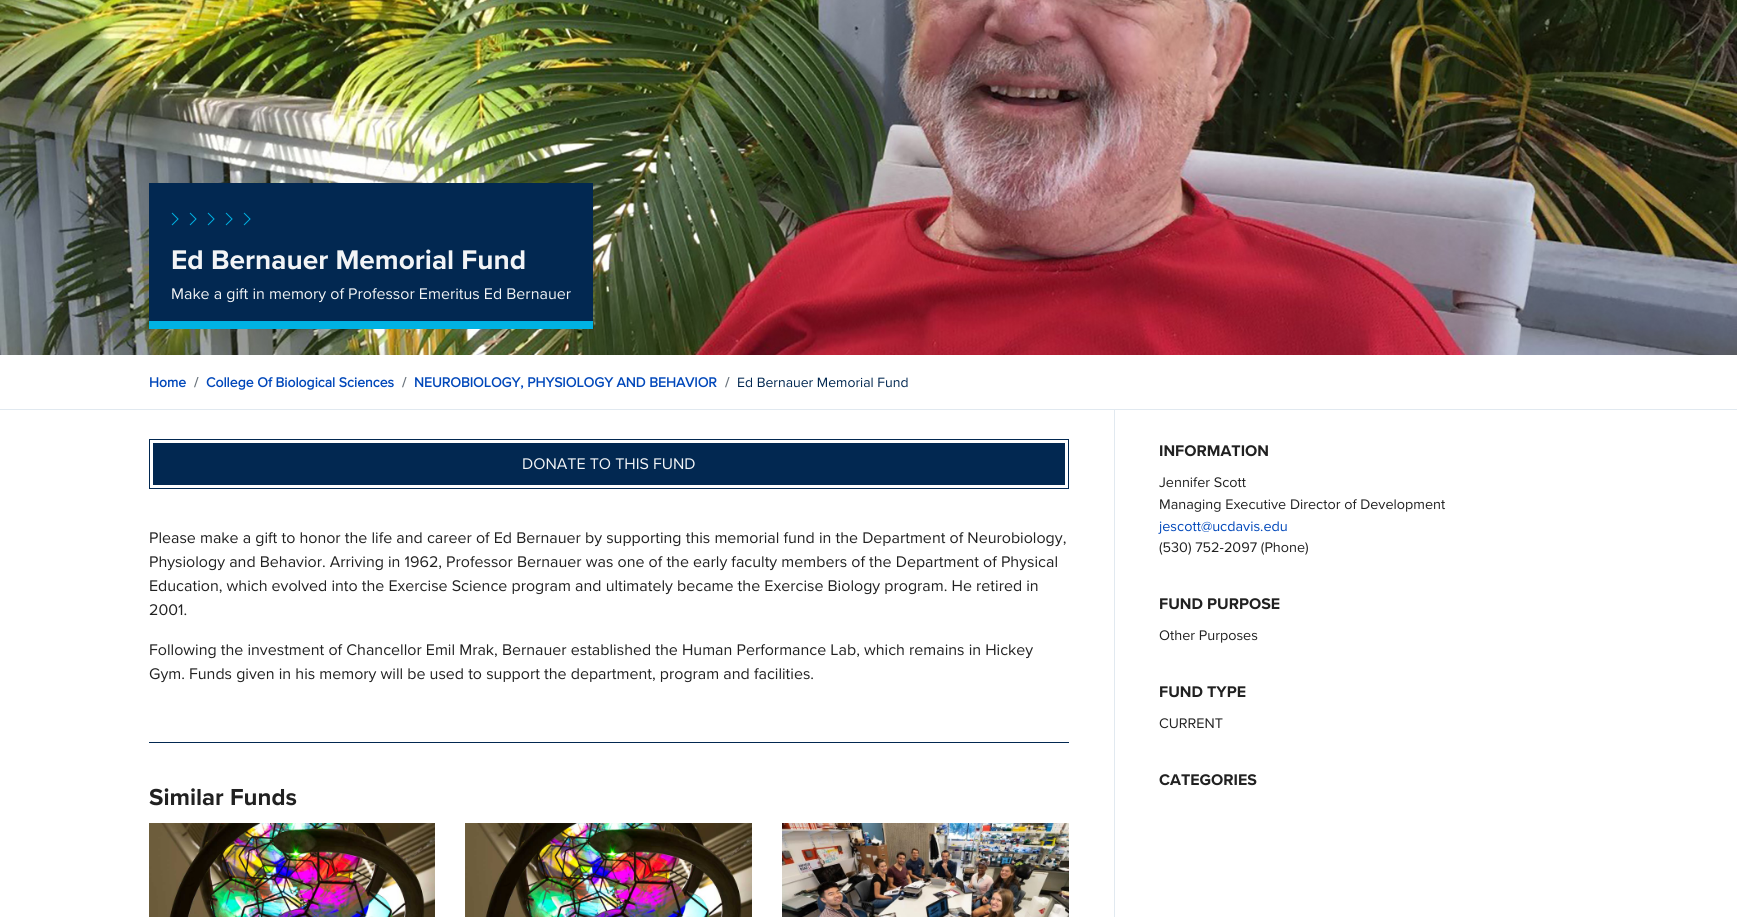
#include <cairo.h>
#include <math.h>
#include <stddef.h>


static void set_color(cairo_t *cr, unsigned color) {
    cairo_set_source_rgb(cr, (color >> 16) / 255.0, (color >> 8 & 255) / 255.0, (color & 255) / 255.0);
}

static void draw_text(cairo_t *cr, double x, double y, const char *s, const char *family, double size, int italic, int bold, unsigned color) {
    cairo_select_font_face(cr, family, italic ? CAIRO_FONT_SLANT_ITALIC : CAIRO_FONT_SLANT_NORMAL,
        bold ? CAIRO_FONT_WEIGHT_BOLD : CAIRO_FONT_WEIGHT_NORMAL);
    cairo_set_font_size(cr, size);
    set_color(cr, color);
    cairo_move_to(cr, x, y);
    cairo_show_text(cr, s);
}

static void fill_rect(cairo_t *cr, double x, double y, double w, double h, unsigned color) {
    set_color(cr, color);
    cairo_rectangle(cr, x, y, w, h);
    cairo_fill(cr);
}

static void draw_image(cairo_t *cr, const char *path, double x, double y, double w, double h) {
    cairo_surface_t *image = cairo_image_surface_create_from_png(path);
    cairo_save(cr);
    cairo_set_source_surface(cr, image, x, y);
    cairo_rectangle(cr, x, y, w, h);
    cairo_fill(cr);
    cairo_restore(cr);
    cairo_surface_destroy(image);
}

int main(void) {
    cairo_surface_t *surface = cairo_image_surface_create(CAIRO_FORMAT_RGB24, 1737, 917);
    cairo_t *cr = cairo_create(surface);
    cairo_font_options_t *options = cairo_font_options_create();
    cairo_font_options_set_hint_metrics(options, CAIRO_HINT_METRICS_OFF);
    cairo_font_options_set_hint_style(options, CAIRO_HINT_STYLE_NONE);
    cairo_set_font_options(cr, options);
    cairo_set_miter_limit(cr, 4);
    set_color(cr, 0xFFFFFF);
    cairo_paint(cr);
    draw_image(cr, "assets/img1.png", 0, 0, 1737, 355);
    fill_rect(cr, 149, 183, 444, 138, 0x022851);
    fill_rect(cr, 149, 321, 444, 8, 0x00B2E3);
    cairo_new_path(cr);
    cairo_move_to(cr, 190, 225);
    cairo_line_to(cr, 196, 219);
    cairo_line_to(cr, 190, 213);
    cairo_move_to(cr, 172, 225);
    cairo_line_to(cr, 178, 219);
    cairo_line_to(cr, 172, 213);
    cairo_move_to(cr, 208, 225);
    cairo_line_to(cr, 214, 219);
    cairo_line_to(cr, 208, 213);
    cairo_set_line_width(cr, 1);
    cairo_stroke(cr);
    cairo_new_path(cr);
    cairo_move_to(cr, 244, 225);
    cairo_line_to(cr, 250, 219);
    cairo_line_to(cr, 244, 213);
    cairo_move_to(cr, 226, 225);
    cairo_line_to(cr, 232, 219);
    cairo_line_to(cr, 226, 213);
    cairo_stroke(cr);
    draw_text(cr, 171, 269, "Ed Bernauer Memorial Fund", "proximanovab", 28, 0, 1, 0xF2F4F6);
    draw_text(cr, 171, 299, "Make a gift in memory of Professor Emeritus Ed Bernauer", "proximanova", 16, 0, 0, 0xF2F4F6);
    fill_rect(cr, 0, 409, 1737, 1, 0xE1E9F0);
    draw_text(cr, 149, 387, "Home", "proximanova", 14, 0, 1, 0x0047BA);
    draw_text(cr, 194, 387, "/", "proximanova", 14, 0, 1, 0x6C757D);
    draw_text(cr, 206, 387, "College Of Biological Sciences", "proximanova", 14, 0, 1, 0x0047BA);
    draw_text(cr, 402, 387, "/", "proximanova", 14, 0, 1, 0x6C757D);
    draw_text(cr, 414, 387, "NEUROBIOLOGY, PHYSIOLOGY AND BEHAVIOR", "proximanova", 14, 0, 1, 0x0047BA);
    draw_text(cr, 725, 387, "/", "proximanova", 14, 0, 1, 0x6C757D);
    draw_text(cr, 737, 387, "Ed Bernauer Memorial Fund", "proximanova", 14, 0, 0, 0x022851);
    cairo_rectangle(cr, 149.5, 439.5, 919, 49);
    cairo_stroke(cr);
    fill_rect(cr, 153, 443, 912, 42, 0x022851);
    draw_text(cr, 522, 469, "DONATE TO THIS FUND", "proximanova", 16, 0, 0, 0xF2F4F6);
    draw_text(cr, 149, 543, "Please make a gift to honor the life and career of Ed Bernauer by supporting this memorial fund in the Department of Neurobiology,", "proximanova", 16, 0, 0, 0x212121);
    draw_text(cr, 149, 567, "Physiology and Behavior. Arriving in 1962, Professor Bernauer was one of the early faculty members of the Department of Physical", "proximanova", 16, 0, 0, 0x212121);
    draw_text(cr, 149, 591, "Education, which evolved into the Exercise Science program and ultimately became the Exercise Biology program. He retired in", "proximanova", 16, 0, 0, 0x212121);
    draw_text(cr, 149, 615, "2001.", "proximanova", 16, 0, 0, 0x212121);
    draw_text(cr, 149, 655, "Following the investment of Chancellor Emil Mrak, Bernauer established the Human Performance Lab, which remains in Hickey", "proximanova", 16, 0, 0, 0x212121);
    draw_text(cr, 149, 679, "Gym. Funds given in his memory will be used to support the department, program and facilities.", "proximanova", 16, 0, 0, 0x212121);
    fill_rect(cr, 149, 742, 920, 1, 0x022851);
    draw_text(cr, 149, 805, "Similar Funds", "proximanovab", 24, 0, 1, 0x212121);
    draw_image(cr, "assets/img2.png", 149, 823, 286, 94);
    draw_image(cr, "assets/img3.png", 465, 823, 287, 94);
    draw_image(cr, "assets/img4.png", 782, 823, 287, 94);
    fill_rect(cr, 1114, 410, 1, 507, 0xE1E9F0);
    draw_text(cr, 1159, 456, "INFORMATION", "proximanovab", 16, 0, 1, 0x212121);
    draw_text(cr, 1159, 487, "Jennifer Scott", "proximanova", 14.4, 0, 0, 0x212121);
    draw_text(cr, 1159, 509, "Managing Executive Director of Development", "proximanova", 14.4, 0, 0, 0x212121);
    draw_text(cr, 1159, 531, "jescott@ucdavis.edu", "proximanova", 14.4, 0, 0, 0x0047BA);
    draw_text(cr, 1159, 552, "(530) 752-2097 (Phone)", "proximanova", 14.4, 0, 0, 0x212121);
    draw_text(cr, 1159, 609, "FUND PURPOSE", "proximanovab", 16, 0, 1, 0x212121);
    draw_text(cr, 1159, 640, "Other Purposes", "proximanova", 14.4, 0, 0, 0x212121);
    draw_text(cr, 1159, 697, "FUND TYPE", "proximanovab", 16, 0, 1, 0x212121);
    draw_text(cr, 1159, 728, "CURRENT", "proximanova", 14.4, 0, 0, 0x212121);
    draw_text(cr, 1159, 785, "CATEGORIES", "proximanovab", 16, 0, 1, 0x212121);
    cairo_surface_write_to_png(surface, "output.png");
    cairo_font_options_destroy(options);
    cairo_destroy(cr);
    cairo_surface_destroy(surface);
    return 0;
}
